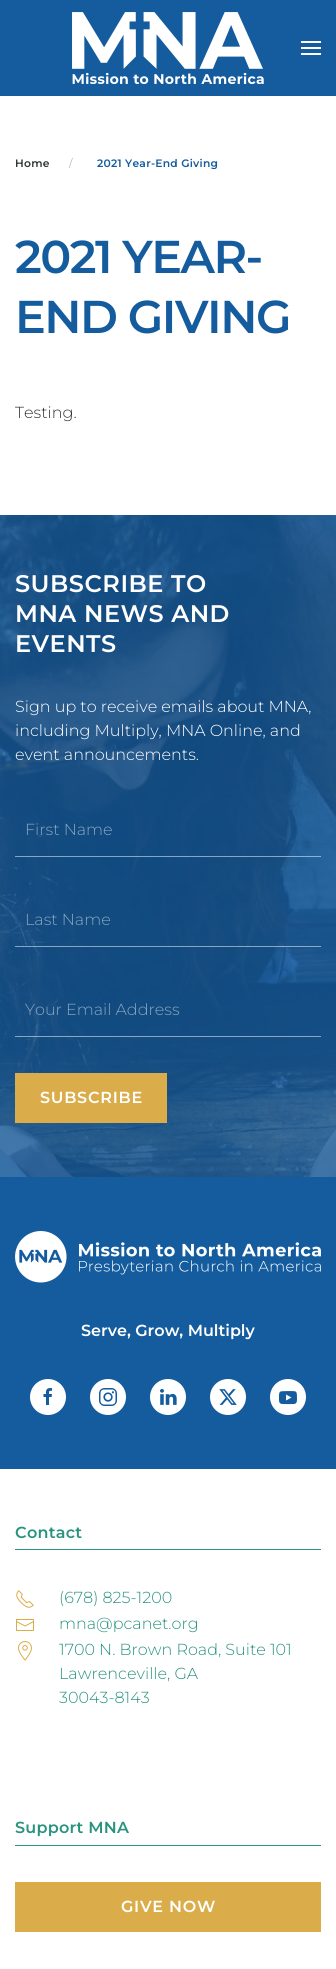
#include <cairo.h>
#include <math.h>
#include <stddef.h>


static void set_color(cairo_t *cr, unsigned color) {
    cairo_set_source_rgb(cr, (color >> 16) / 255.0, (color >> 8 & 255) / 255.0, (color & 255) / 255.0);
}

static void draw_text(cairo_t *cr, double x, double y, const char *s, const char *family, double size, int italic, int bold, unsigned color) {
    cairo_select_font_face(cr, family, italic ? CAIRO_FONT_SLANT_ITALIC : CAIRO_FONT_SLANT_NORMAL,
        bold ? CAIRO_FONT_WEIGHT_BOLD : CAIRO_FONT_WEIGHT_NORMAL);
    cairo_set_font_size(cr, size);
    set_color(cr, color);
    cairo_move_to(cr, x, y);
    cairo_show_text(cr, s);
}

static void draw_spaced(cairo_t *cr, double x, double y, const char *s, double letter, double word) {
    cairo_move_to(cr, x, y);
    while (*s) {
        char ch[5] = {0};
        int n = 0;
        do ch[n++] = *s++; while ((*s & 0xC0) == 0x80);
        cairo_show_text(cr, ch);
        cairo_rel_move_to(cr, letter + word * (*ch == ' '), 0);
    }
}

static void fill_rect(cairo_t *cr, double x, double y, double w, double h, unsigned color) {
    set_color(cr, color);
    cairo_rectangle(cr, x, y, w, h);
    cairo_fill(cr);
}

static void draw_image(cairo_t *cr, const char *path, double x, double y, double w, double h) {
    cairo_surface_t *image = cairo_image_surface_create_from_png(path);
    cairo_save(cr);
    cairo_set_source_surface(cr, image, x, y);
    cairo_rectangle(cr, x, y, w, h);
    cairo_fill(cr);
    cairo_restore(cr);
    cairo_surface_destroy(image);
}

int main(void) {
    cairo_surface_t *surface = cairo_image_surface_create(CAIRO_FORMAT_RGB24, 336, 1969);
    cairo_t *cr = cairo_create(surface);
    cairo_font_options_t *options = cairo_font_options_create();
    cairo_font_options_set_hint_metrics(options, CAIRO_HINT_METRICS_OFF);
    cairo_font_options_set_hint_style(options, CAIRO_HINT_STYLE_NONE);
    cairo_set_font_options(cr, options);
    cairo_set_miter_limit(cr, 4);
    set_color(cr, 0xFFFFFF);
    cairo_paint(cr);
    fill_rect(cr, 0, 0, 336, 96, 0x145C9E);
    draw_image(cr, "assets/img1.png", 72, 12, 192, 72);
    fill_rect(cr, 301, 41, 20, 2, 0xFFFFFF);
    fill_rect(cr, 301, 47, 20, 2, 0xFFFFFF);
    fill_rect(cr, 301, 53, 20, 2, 0xFFFFFF);
    cairo_select_font_face(cr, "Montserrat Thin", CAIRO_FONT_SLANT_NORMAL, CAIRO_FONT_WEIGHT_NORMAL);
    cairo_set_font_size(cr, 10.75);
    set_color(cr, 0x2F3436);
    draw_spaced(cr, 15, 167, "Home", 0.25, 0);
    draw_text(cr, 69, 167, "/", "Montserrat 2 Thin", 10.75, 0, 0, 0x8F989D);
    cairo_select_font_face(cr, "Montserrat Thin", CAIRO_FONT_SLANT_NORMAL, CAIRO_FONT_WEIGHT_NORMAL);
    set_color(cr, 0x145C9E);
    draw_spaced(cr, 97, 167, "2021 Year-End Giving", 0.25, 0);
    cairo_set_font_size(cr, 46);
    draw_spaced(cr, 15, 273, "2021 YEAR-", -1.5, 0);
    draw_spaced(cr, 15, 333, "END GIVING", -1.5, 0);
    draw_text(cr, 15, 418, "Testing.", "Montserrat 2 Thin", 16, 0, 0, 0x2F3436);
    draw_image(cr, "assets/img2.png", 0, 515, 336, 662);
    cairo_select_font_face(cr, "Montserrat Thin", CAIRO_FONT_SLANT_NORMAL, CAIRO_FONT_WEIGHT_NORMAL);
    cairo_set_font_size(cr, 24);
    set_color(cr, 0xFFFFFF);
    draw_spaced(cr, 15, 592, "SUBSCRIBE TO", 0.5, 0);
    draw_spaced(cr, 15, 622, "MNA NEWS AND", 0.5, 0);
    draw_spaced(cr, 15, 652, "EVENTS", 0.5, 0);
    draw_text(cr, 15, 712, "Sign up to receive emails about MNA,", "Montserrat 2 Thin", 16, 0, 0, 0xFFFFFF);
    draw_text(cr, 15, 736, "including Multiply, MNA Online, and", "Montserrat 2 Thin", 16, 0, 0, 0xFFFFFF);
    draw_text(cr, 15, 760, "event announcements.", "Montserrat 2 Thin", 16, 0, 0, 0xFFFFFF);
    cairo_set_source_rgba(cr, 1, 1, 1, 0.5);
    cairo_rectangle(cr, 15, 856, 306, 1);
    cairo_fill(cr);
    draw_text(cr, 25, 835, "First Name", "Montserrat 2 Thin", 16, 0, 0, 0x88A5C0);
    cairo_set_source_rgba(cr, 1, 1, 1, 0.5);
    cairo_rectangle(cr, 15, 946, 306, 1);
    cairo_fill(cr);
    draw_text(cr, 25, 925, "Last Name", "Montserrat 2 Thin", 16, 0, 0, 0x88A5C0);
    cairo_set_source_rgba(cr, 1, 1, 1, 0.5);
    cairo_rectangle(cr, 15, 1036, 306, 1);
    cairo_fill(cr);
    draw_text(cr, 25, 1015, "Your Email Address", "Montserrat 2 Thin", 16, 0, 0, 0x88A5C0);
    fill_rect(cr, 15, 1073, 152, 50, 0xDBAD4A);
    cairo_select_font_face(cr, "Montserrat Thin", CAIRO_FONT_SLANT_NORMAL, CAIRO_FONT_WEIGHT_NORMAL);
    set_color(cr, 0xFFFFFF);
    draw_spaced(cr, 40, 1103, "SUBSCRIBE", 0.75, 0);
    fill_rect(cr, 0, 1177, 336, 292, 0x145C9E);
    draw_image(cr, "assets/img3.png", 15, 1231, 306, 52);
    draw_text(cr, 81, 1336, "Serve, Grow, Multiply", "Montserrat Thin", 16, 0, 0, 0xFFFFFF);
    cairo_new_path(cr);
    cairo_arc(cr, 48, 1397, 18, 0, 2 * M_PI);
    cairo_fill(cr);
    draw_image(cr, "assets/img4.png", 43, 1388, 9, 17);
    cairo_arc(cr, 108, 1397, 18, 0, 2 * M_PI);
    cairo_fill(cr);
    draw_image(cr, "assets/img5.png", 99, 1388, 18, 18);
    cairo_arc(cr, 168, 1397, 18, 0, 2 * M_PI);
    cairo_fill(cr);
    draw_image(cr, "assets/img6.png", 160, 1389, 17, 16);
    cairo_arc(cr, 228, 1397, 18, 0, 2 * M_PI);
    cairo_fill(cr);
    draw_image(cr, "assets/img7.png", 219, 1389, 18, 16);
    cairo_arc(cr, 288, 1397, 18, 0, 2 * M_PI);
    cairo_fill(cr);
    draw_image(cr, "assets/img8.png", 279, 1391, 18, 14);
    fill_rect(cr, 15, 1549, 306, 1, 0x2A937F);
    draw_spaced(cr, 15, 1538, "Contact", 0.25, 0);
    draw_image(cr, "assets/img9.png", 16, 1590, 18, 18);
    draw_text(cr, 59, 1603, "(678) 825-1200", "Montserrat 2 Thin", 16, 0, 0, 0x2A937F);
    draw_image(cr, "assets/img10.png", 16, 1619, 18, 12);
    draw_text(cr, 59, 1629, "mna@pcanet.org", "Montserrat 2 Thin", 16, 0, 0, 0x2A937F);
    draw_image(cr, "assets/img11.png", 18, 1641, 14, 20);
    draw_text(cr, 59, 1655, "1700 N. Brown Road, Suite 101", "Montserrat 2 Thin", 16, 0, 0, 0x2A937F);
    draw_text(cr, 59, 1679, "Lawrenceville, GA", "Montserrat 2 Thin", 16, 0, 0, 0x2A937F);
    draw_text(cr, 59, 1703, "30043-8143", "Montserrat 2 Thin", 16, 0, 0, 0x2A937F);
    fill_rect(cr, 15, 1845, 306, 1, 0x2A937F);
    cairo_select_font_face(cr, "Montserrat Thin", CAIRO_FONT_SLANT_NORMAL, CAIRO_FONT_WEIGHT_NORMAL);
    draw_spaced(cr, 15, 1833, "Support MNA", 0.25, 0);
    fill_rect(cr, 15, 1882, 306, 50, 0xDBAD4A);
    set_color(cr, 0xFFFFFF);
    draw_spaced(cr, 121, 1912, "GIVE NOW", 0.75, 0);
    cairo_surface_write_to_png(surface, "output.png");
    cairo_font_options_destroy(options);
    cairo_destroy(cr);
    cairo_surface_destroy(surface);
    return 0;
}
